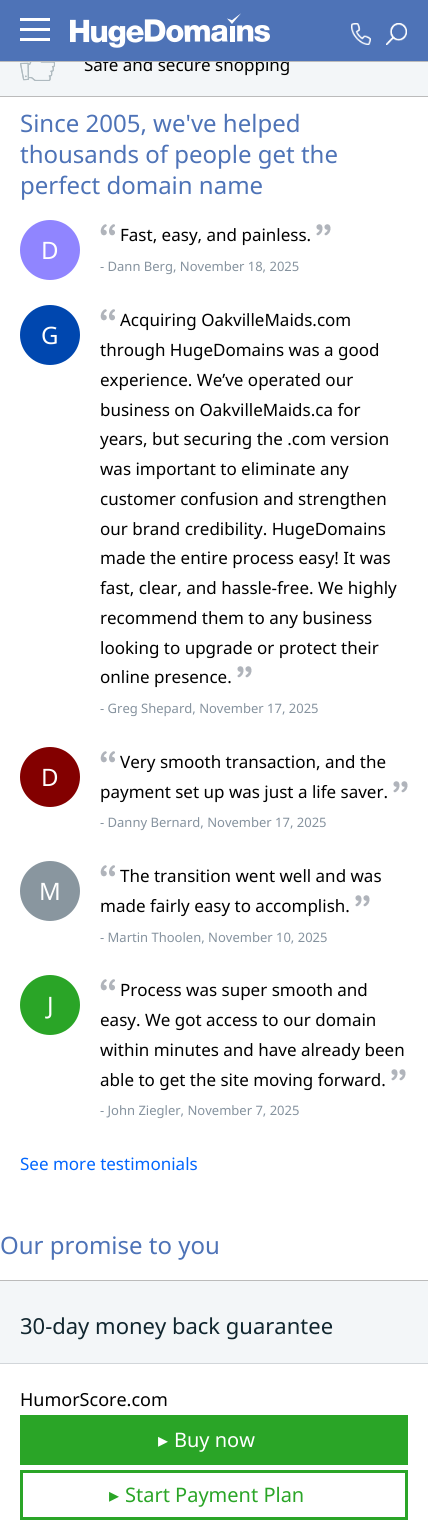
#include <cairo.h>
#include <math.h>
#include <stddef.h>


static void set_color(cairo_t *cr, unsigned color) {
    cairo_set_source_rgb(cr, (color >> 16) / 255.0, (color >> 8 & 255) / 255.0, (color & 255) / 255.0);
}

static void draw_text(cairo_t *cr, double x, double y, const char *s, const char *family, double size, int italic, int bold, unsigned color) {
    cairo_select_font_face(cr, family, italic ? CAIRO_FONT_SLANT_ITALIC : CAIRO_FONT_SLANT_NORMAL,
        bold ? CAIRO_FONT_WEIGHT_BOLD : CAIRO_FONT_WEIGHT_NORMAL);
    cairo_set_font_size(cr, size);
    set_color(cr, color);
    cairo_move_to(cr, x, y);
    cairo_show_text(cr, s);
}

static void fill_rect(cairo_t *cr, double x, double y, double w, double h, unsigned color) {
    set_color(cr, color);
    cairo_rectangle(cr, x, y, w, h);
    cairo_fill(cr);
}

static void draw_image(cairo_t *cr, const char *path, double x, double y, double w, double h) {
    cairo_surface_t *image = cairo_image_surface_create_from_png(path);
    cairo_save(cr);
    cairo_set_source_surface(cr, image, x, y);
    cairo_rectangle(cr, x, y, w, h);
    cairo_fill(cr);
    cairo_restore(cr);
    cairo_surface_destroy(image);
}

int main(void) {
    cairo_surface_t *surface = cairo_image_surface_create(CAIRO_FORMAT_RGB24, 428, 1540);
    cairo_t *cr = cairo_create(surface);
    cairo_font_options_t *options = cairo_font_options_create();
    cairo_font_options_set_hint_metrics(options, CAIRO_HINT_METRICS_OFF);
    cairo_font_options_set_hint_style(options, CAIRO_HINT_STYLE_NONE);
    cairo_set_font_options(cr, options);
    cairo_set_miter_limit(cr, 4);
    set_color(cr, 0xFFFFFF);
    cairo_paint(cr);
    fill_rect(cr, 0, 62, 428, 34, 0xF3F6F8);
    draw_text(cr, 84, 71, "Safe and secure shopping", "Noto Sans", 17, 0, 0, 0x000000);
    fill_rect(cr, 0, 0, 428, 61, 0x4E73B7);
    fill_rect(cr, 0, 61, 428, 1, 0xBBBBBB);
    fill_rect(cr, 20, 28, 30, 3, 0xFFFFFF);
    fill_rect(cr, 20, 18, 30, 3, 0xFFFFFF);
    fill_rect(cr, 20, 38, 30, 3, 0xFFFFFF);
    draw_image(cr, "assets/img1.png", 70, 13, 200, 35);
    draw_image(cr, "assets/img2.png", 351, 23, 20, 22);
    draw_image(cr, "assets/img3.png", 386, 23, 21, 22);
    fill_rect(cr, 0, 96, 428, 1, 0xBBBBBB);
    draw_image(cr, "assets/img4.png", 20, 62, 35, 19);
    draw_text(cr, 20, 132, "Since 2005, we've helped", "Noto Sans", 24, 0, 0, 0x4E73B7);
    draw_text(cr, 20, 163, "thousands of people get the", "Noto Sans", 24, 0, 0, 0x4E73B7);
    draw_text(cr, 20, 194, "perfect domain name", "Noto Sans", 24, 0, 0, 0x4E73B7);
    set_color(cr, 0x9085FF);
    cairo_new_path(cr);
    cairo_arc(cr, 50, 250, 30, 0, 2 * M_PI);
    cairo_fill(cr);
    draw_text(cr, 41, 259, "D", "Noto Sans", 24, 0, 0, 0xFFFFFF);
    draw_image(cr, "assets/img5.png", 100, 224, 15, 12);
    draw_text(cr, 120, 241, "Fast, easy, and painless.", "Noto Sans", 17, 0, 0, 0x000000);
    draw_image(cr, "assets/img6.png", 316, 224, 15, 12);
    draw_text(cr, 100, 271, "- Dann Berg, November 18, 2025", "Noto Sans", 13, 0, 0, 0x85929E);
    set_color(cr, 0x0047AF);
    cairo_new_path(cr);
    cairo_arc(cr, 50, 335, 30, 0, 2 * M_PI);
    cairo_fill(cr);
    draw_text(cr, 41, 344, "G", "Noto Sans", 24, 0, 0, 0xFFFFFF);
    draw_image(cr, "assets/img5.png", 100, 309, 15, 12);
    draw_text(cr, 120, 326, "Acquiring OakvilleMaids.com", "Noto Sans", 17, 0, 0, 0x000000);
    draw_text(cr, 100, 356, "through HugeDomains was a good", "Noto Sans", 17, 0, 0, 0x000000);
    draw_text(cr, 100, 386, "experience. We’ve operated our", "Noto Sans", 17, 0, 0, 0x000000);
    draw_text(cr, 100, 416, "business on OakvilleMaids.ca for", "Noto Sans", 17, 0, 0, 0x000000);
    draw_text(cr, 100, 445, "years, but securing the .com version", "Noto Sans", 17, 0, 0, 0x000000);
    draw_text(cr, 100, 475, "was important to eliminate any", "Noto Sans", 17, 0, 0, 0x000000);
    draw_text(cr, 100, 505, "customer confusion and strengthen", "Noto Sans", 17, 0, 0, 0x000000);
    draw_text(cr, 100, 535, "our brand credibility. HugeDomains", "Noto Sans", 17, 0, 0, 0x000000);
    draw_text(cr, 100, 564, "made the entire process easy! It was", "Noto Sans", 17, 0, 0, 0x000000);
    draw_text(cr, 100, 594, "fast, clear, and hassle-free. We highly", "Noto Sans", 17, 0, 0, 0x000000);
    draw_text(cr, 100, 624, "recommend them to any business", "Noto Sans", 17, 0, 0, 0x000000);
    draw_text(cr, 100, 654, "looking to upgrade or protect their", "Noto Sans", 17, 0, 0, 0x000000);
    draw_text(cr, 100, 683, "online presence.", "Noto Sans", 17, 0, 0, 0x000000);
    draw_image(cr, "assets/img6.png", 237, 666, 15, 12);
    draw_text(cr, 100, 713, "- Greg Shepard, November 17, 2025", "Noto Sans", 13, 0, 0, 0x85929E);
    set_color(cr, 0x830000);
    cairo_new_path(cr);
    cairo_arc(cr, 50, 777, 30, 0, 2 * M_PI);
    cairo_fill(cr);
    draw_text(cr, 41, 786, "D", "Noto Sans", 24, 0, 0, 0xFFFFFF);
    draw_image(cr, "assets/img5.png", 100, 751, 15, 12);
    draw_text(cr, 120, 768, "Very smooth transaction, and the", "Noto Sans", 17, 0, 0, 0x000000);
    draw_text(cr, 100, 798, "payment set up was just a life saver.", "Noto Sans", 17, 0, 0, 0x000000);
    draw_image(cr, "assets/img6.png", 393, 781, 15, 12);
    draw_text(cr, 100, 827, "- Danny Bernard, November 17, 2025", "Noto Sans", 13, 0, 0, 0x85929E);
    set_color(cr, 0x89969F);
    cairo_new_path(cr);
    cairo_arc(cr, 50, 891, 30, 0, 2 * M_PI);
    cairo_fill(cr);
    draw_text(cr, 39, 900, "M", "Noto Sans", 24, 0, 0, 0xFFFFFF);
    draw_image(cr, "assets/img5.png", 100, 865, 15, 12);
    draw_text(cr, 120, 882, "The transition went well and was", "Noto Sans", 17, 0, 0, 0x000000);
    draw_text(cr, 100, 912, "made fairly easy to accomplish.", "Noto Sans", 17, 0, 0, 0x000000);
    draw_image(cr, "assets/img6.png", 355, 895, 15, 12);
    draw_text(cr, 100, 942, "- Martin Thoolen, November 10, 2025", "Noto Sans", 13, 0, 0, 0x85929E);
    set_color(cr, 0x2AA527);
    cairo_new_path(cr);
    cairo_arc(cr, 50, 1005, 30, 0, 2 * M_PI);
    cairo_fill(cr);
    draw_text(cr, 47, 1014, "J", "Noto Sans", 24, 0, 0, 0xFFFFFF);
    draw_image(cr, "assets/img5.png", 100, 979, 15, 12);
    draw_text(cr, 120, 996, "Process was super smooth and", "Noto Sans", 17, 0, 0, 0x000000);
    draw_text(cr, 100, 1026, "easy. We got access to our domain", "Noto Sans", 17, 0, 0, 0x000000);
    draw_text(cr, 100, 1056, "within minutes and have already been", "Noto Sans", 17, 0, 0, 0x000000);
    draw_text(cr, 100, 1086, "able to get the site moving forward.", "Noto Sans", 17, 0, 0, 0x000000);
    draw_image(cr, "assets/img6.png", 391, 1069, 15, 12);
    draw_text(cr, 100, 1115, "- John Ziegler, November 7, 2025", "Noto Sans", 13, 0, 0, 0x85929E);
    draw_text(cr, 20, 1170, "See more testimonials", "Noto Sans", 17, 0, 0, 0x0166FE);
    draw_text(cr, 0, 1254, "Our promise to you", "Noto Sans", 24, 0, 0, 0x4E73B7);
    fill_rect(cr, 0, 1281, 428, 82, 0xF3F6F8);
    fill_rect(cr, 0, 1280, 428, 1, 0xBBBBBB);
    draw_text(cr, 20, 1334, "30-day money back guarantee", "Noto Sans", 22, 0, 0, 0x11262F);
    fill_rect(cr, 0, 1363, 428, 1, 0xD2D6DA);
    draw_text(cr, 20, 1406, "HumorScore.com", "Noto Sans", 18, 0, 0, 0x000000);
    fill_rect(cr, 20, 1415, 388, 50, 0x2AA527);
    draw_text(cr, 158, 1447, "▸", "DejaVu Sans", 20, 0, 0, 0xFFFFFF);
    draw_text(cr, 174, 1447, "Buy now", "Noto Sans", 20, 0, 0, 0xFFFFFF);
    cairo_rectangle(cr, 21.5, 1471.5, 385, 47);
    set_color(cr, 0x2AA527);
    cairo_set_line_width(cr, 3);
    cairo_stroke(cr);
    draw_text(cr, 109, 1502, "▸", "DejaVu Sans", 20, 0, 0, 0x2AA527);
    draw_text(cr, 125, 1502, "Start Payment Plan", "Noto Sans", 20, 0, 0, 0x2AA527);
    cairo_surface_write_to_png(surface, "output.png");
    cairo_font_options_destroy(options);
    cairo_destroy(cr);
    cairo_surface_destroy(surface);
    return 0;
}
